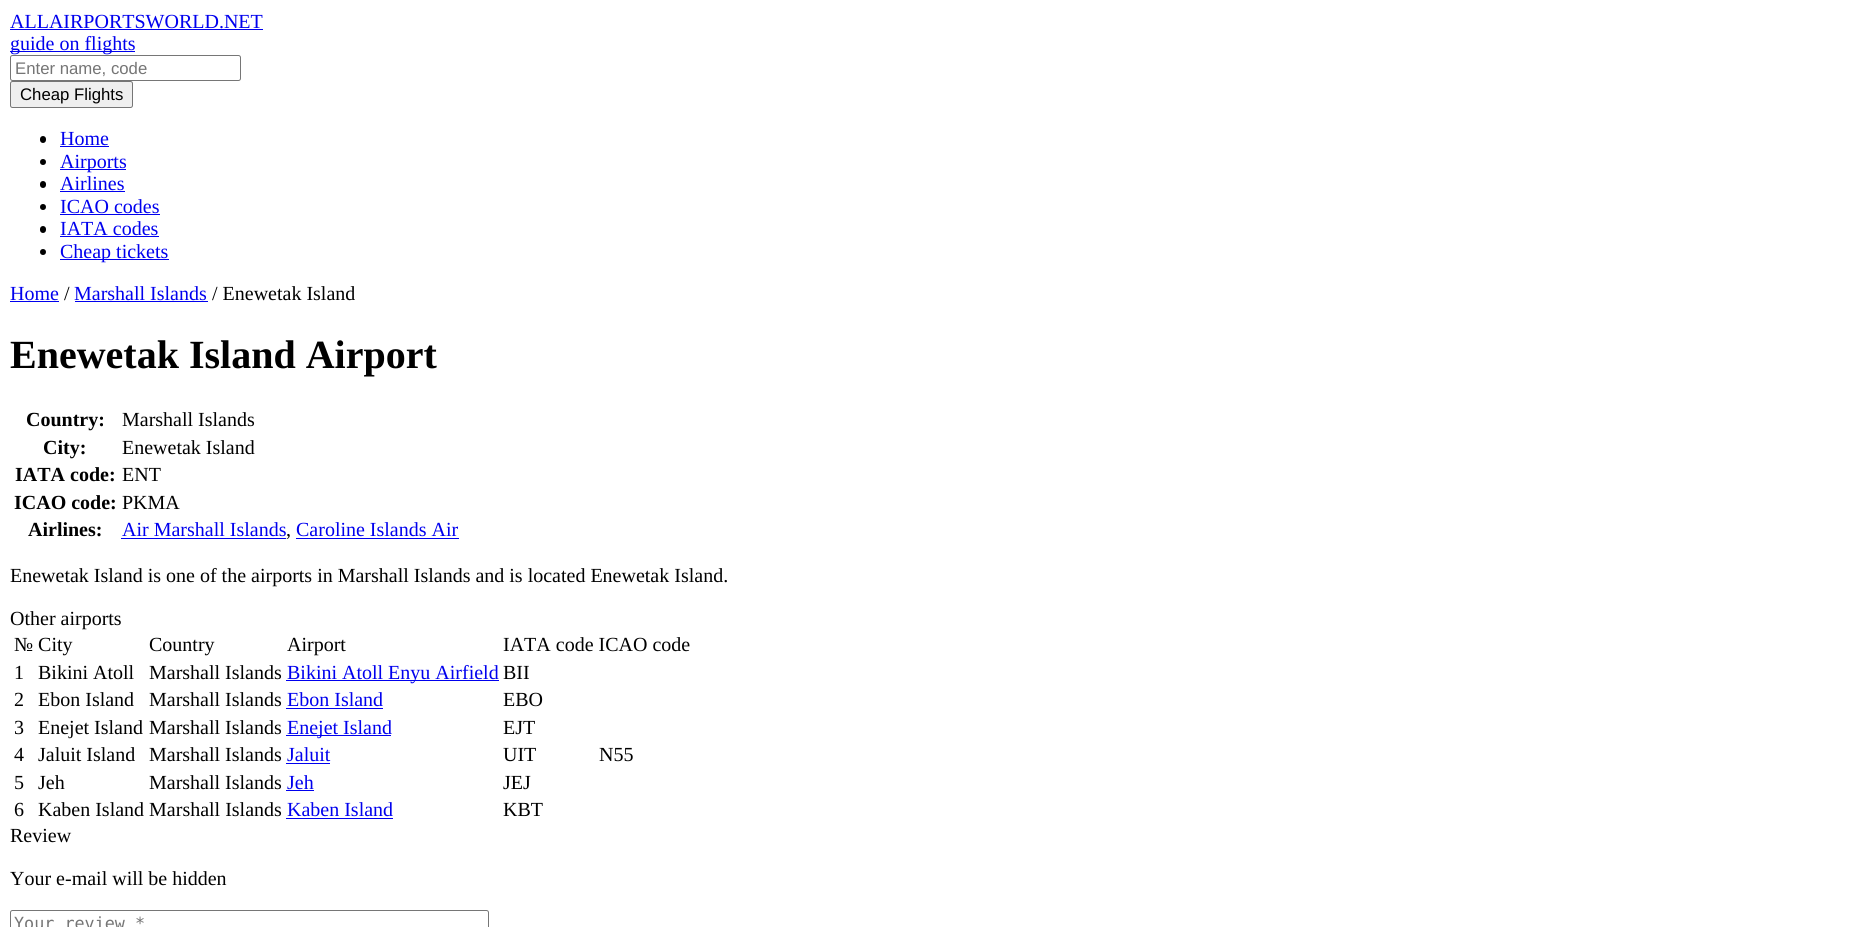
#include <cairo.h>
#include <math.h>
#include <stddef.h>


static void set_color(cairo_t *cr, unsigned color) {
    cairo_set_source_rgb(cr, (color >> 16) / 255.0, (color >> 8 & 255) / 255.0, (color & 255) / 255.0);
}

static void draw_text(cairo_t *cr, double x, double y, const char *s, const char *family, double size, int italic, int bold, unsigned color) {
    cairo_select_font_face(cr, family, italic ? CAIRO_FONT_SLANT_ITALIC : CAIRO_FONT_SLANT_NORMAL,
        bold ? CAIRO_FONT_WEIGHT_BOLD : CAIRO_FONT_WEIGHT_NORMAL);
    cairo_set_font_size(cr, size);
    set_color(cr, color);
    cairo_move_to(cr, x, y);
    cairo_show_text(cr, s);
}

static void fill_rect(cairo_t *cr, double x, double y, double w, double h, unsigned color) {
    set_color(cr, color);
    cairo_rectangle(cr, x, y, w, h);
    cairo_fill(cr);
}

static void rounded_rect(cairo_t *cr, double x, double y, double w, double h, double r) {
    cairo_new_sub_path(cr);
    cairo_arc(cr, x + w - r, y + h - r, r, 0, M_PI / 2);
    cairo_arc(cr, x + r, y + h - r, r, M_PI / 2, M_PI);
    cairo_arc(cr, x + r, y + r, r, M_PI, 1.5 * M_PI);
    cairo_arc(cr, x + w - r, y + r, r, 1.5 * M_PI, 2 * M_PI);
    cairo_close_path(cr);
}

int main(void) {
    cairo_surface_t *surface = cairo_image_surface_create(CAIRO_FORMAT_RGB24, 1867, 927);
    cairo_t *cr = cairo_create(surface);
    cairo_font_options_t *options = cairo_font_options_create();
    cairo_font_options_set_hint_metrics(options, CAIRO_HINT_METRICS_OFF);
    cairo_font_options_set_hint_style(options, CAIRO_HINT_STYLE_NONE);
    cairo_set_font_options(cr, options);
    cairo_set_miter_limit(cr, 4);
    set_color(cr, 0xFFFFFF);
    cairo_paint(cr);
    draw_text(cr, 10, 28, "ALLAIRPORTSWORLD.NET", "Liberation Serif", 20, 0, 0, 0x0000EE);
    fill_rect(cr, 10, 29, 253, 1, 0x0000EE);
    fill_rect(cr, 10, 51, 125, 1, 0x0000EE);
    draw_text(cr, 10, 50, "guide on flights", "Liberation Serif", 20, 0, 0, 0x0000EE);
    rounded_rect(cr, 10.5, 55.5, 230, 25, 2);
    set_color(cr, 0x767676);
    cairo_set_line_width(cr, 1);
    cairo_stroke(cr);
    draw_text(cr, 15, 74, "Enter name, code", "Liberation Sans", 16.75, 0, 0, 0x757575);
    set_color(cr, 0xEFEFEF);
    rounded_rect(cr, 10.5, 81.5, 122, 26, 2);
    cairo_fill_preserve(cr);
    set_color(cr, 0x767676);
    cairo_stroke(cr);
    draw_text(cr, 20, 100, "Cheap Flights", "Liberation Sans", 16.75, 0, 0, 0x000000);
    rounded_rect(cr, 40, 136, 6, 7, 3);
    cairo_fill(cr);
    draw_text(cr, 60, 145, "Home", "Liberation Serif", 20, 0, 0, 0x0000EE);
    fill_rect(cr, 60, 146, 49, 1, 0x0000EE);
    set_color(cr, 0x000000);
    cairo_new_path(cr);
    cairo_arc(cr, 43, 162, 3, 0, 2 * M_PI);
    cairo_fill(cr);
    fill_rect(cr, 60, 169, 66, 1, 0x0000EE);
    draw_text(cr, 60, 168, "Airports", "Liberation Serif", 20, 0, 0, 0x0000EE);
    set_color(cr, 0x000000);
    rounded_rect(cr, 40, 181, 6, 7, 3);
    cairo_fill(cr);
    draw_text(cr, 60, 190, "Airlines", "Liberation Serif", 20, 0, 0, 0x0000EE);
    fill_rect(cr, 60, 191, 65, 1, 0x0000EE);
    set_color(cr, 0x000000);
    cairo_new_path(cr);
    cairo_arc(cr, 43, 207, 3, 0, 2 * M_PI);
    cairo_fill(cr);
    draw_text(cr, 60, 213, "ICAO codes", "Liberation Serif", 20, 0, 0, 0x0000EE);
    fill_rect(cr, 60, 214, 100, 1, 0x0000EE);
    set_color(cr, 0x000000);
    rounded_rect(cr, 40, 226, 6, 7, 3);
    cairo_fill(cr);
    draw_text(cr, 60, 235, "IATA codes", "Liberation Serif", 20, 0, 0, 0x0000EE);
    fill_rect(cr, 60, 236, 99, 1, 0x0000EE);
    set_color(cr, 0x000000);
    cairo_new_path(cr);
    cairo_arc(cr, 43, 252, 3, 0, 2 * M_PI);
    cairo_fill(cr);
    fill_rect(cr, 60, 259, 109, 1, 0x0000EE);
    draw_text(cr, 60, 258, "Cheap tickets", "Liberation Serif", 20, 0, 0, 0x0000EE);
    draw_text(cr, 10, 300, "Home", "Liberation Serif", 20, 0, 0, 0x0000EE);
    fill_rect(cr, 10, 301, 49, 1, 0x0000EE);
    draw_text(cr, 64, 300, "/", "Liberation Serif", 20, 0, 0, 0x000000);
    draw_text(cr, 74, 300, "Marshall Islands", "Liberation Serif", 20, 0, 0, 0x0000EE);
    fill_rect(cr, 75, 301, 133, 1, 0x0000EE);
    draw_text(cr, 212, 300, "/ Enewetak Island", "Liberation Serif", 20, 0, 0, 0x000000);
    draw_text(cr, 10, 368, "Enewetak Island Airport", "Liberation Serif", 40, 0, 1, 0x000000);
    draw_text(cr, 26, 426, "Country:", "Liberation Serif", 20, 0, 1, 0x000000);
    draw_text(cr, 122, 426, "Marshall Islands", "Liberation Serif", 20, 0, 0, 0x000000);
    draw_text(cr, 43, 454, "City:", "Liberation Serif", 20, 0, 1, 0x000000);
    draw_text(cr, 122, 454, "Enewetak Island", "Liberation Serif", 20, 0, 0, 0x000000);
    draw_text(cr, 15, 481, "IATA code:", "Liberation Serif", 20, 0, 1, 0x000000);
    draw_text(cr, 122, 481, "ENT", "Liberation Serif", 20, 0, 0, 0x000000);
    draw_text(cr, 14, 509, "ICAO code:", "Liberation Serif", 20, 0, 1, 0x000000);
    draw_text(cr, 122, 509, "PKMA", "Liberation Serif", 20, 0, 0, 0x000000);
    draw_text(cr, 28, 536, "Airlines:", "Liberation Serif", 20, 0, 1, 0x000000);
    draw_text(cr, 122, 536, "Air Marshall Islands", "Liberation Serif", 20, 0, 0, 0x0000EE);
    fill_rect(cr, 121, 538, 165, 1, 0x0000EE);
    draw_text(cr, 286, 536, ",", "Liberation Serif", 20, 0, 0, 0x000000);
    draw_text(cr, 296, 536, "Caroline Islands Air", "Liberation Serif", 20, 0, 0, 0x0000EE);
    fill_rect(cr, 296, 538, 163, 1, 0x0000EE);
    draw_text(cr, 10, 582, "Enewetak Island is one of the airports in Marshall Islands and is located Enewetak Island.", "Liberation Serif", 20, 0, 0, 0x000000);
    draw_text(cr, 10, 625, "Other airports", "Liberation Serif", 20, 0, 0, 0x000000);
    draw_text(cr, 14, 651, "№ City", "Liberation Serif", 20, 0, 0, 0x000000);
    draw_text(cr, 149, 651, "Country", "Liberation Serif", 20, 0, 0, 0x000000);
    draw_text(cr, 287, 651, "Airport", "Liberation Serif", 20, 0, 0, 0x000000);
    draw_text(cr, 503, 651, "IATA code ICAO code", "Liberation Serif", 20, 0, 0, 0x000000);
    draw_text(cr, 14, 679, "1", "Liberation Serif", 20, 0, 0, 0x000000);
    draw_text(cr, 38, 679, "Bikini Atoll", "Liberation Serif", 20, 0, 0, 0x000000);
    draw_text(cr, 149, 679, "Marshall Islands", "Liberation Serif", 20, 0, 0, 0x000000);
    fill_rect(cr, 286, 680, 213, 1, 0x0000EE);
    draw_text(cr, 287, 679, "Bikini Atoll Enyu Airfield", "Liberation Serif", 20, 0, 0, 0x0000EE);
    draw_text(cr, 503, 679, "BII", "Liberation Serif", 20, 0, 0, 0x000000);
    draw_text(cr, 14, 706, "2", "Liberation Serif", 20, 0, 0, 0x000000);
    draw_text(cr, 38, 706, "Ebon Island", "Liberation Serif", 20, 0, 0, 0x000000);
    draw_text(cr, 149, 706, "Marshall Islands", "Liberation Serif", 20, 0, 0, 0x000000);
    draw_text(cr, 287, 706, "Ebon Island", "Liberation Serif", 20, 0, 0, 0x0000EE);
    fill_rect(cr, 286, 708, 97, 1, 0x0000EE);
    draw_text(cr, 503, 706, "EBO", "Liberation Serif", 20, 0, 0, 0x000000);
    draw_text(cr, 14, 734, "3", "Liberation Serif", 20, 0, 0, 0x000000);
    draw_text(cr, 38, 734, "Enejet Island", "Liberation Serif", 20, 0, 0, 0x000000);
    draw_text(cr, 149, 734, "Marshall Islands", "Liberation Serif", 20, 0, 0, 0x000000);
    fill_rect(cr, 286, 735, 105, 1, 0x0000EE);
    draw_text(cr, 287, 734, "Enejet Island", "Liberation Serif", 20, 0, 0, 0x0000EE);
    draw_text(cr, 503, 734, "EJT", "Liberation Serif", 20, 0, 0, 0x000000);
    draw_text(cr, 14, 761, "4", "Liberation Serif", 20, 0, 0, 0x000000);
    draw_text(cr, 38, 761, "Jaluit Island", "Liberation Serif", 20, 0, 0, 0x000000);
    draw_text(cr, 149, 761, "Marshall Islands", "Liberation Serif", 20, 0, 0, 0x000000);
    draw_text(cr, 287, 761, "Jaluit", "Liberation Serif", 20, 0, 0, 0x0000EE);
    fill_rect(cr, 286, 763, 44, 1, 0x0000EE);
    draw_text(cr, 503, 761, "UIT", "Liberation Serif", 20, 0, 0, 0x000000);
    draw_text(cr, 599, 761, "N55", "Liberation Serif", 20, 0, 0, 0x000000);
    draw_text(cr, 14, 789, "5", "Liberation Serif", 20, 0, 0, 0x000000);
    draw_text(cr, 38, 789, "Jeh", "Liberation Serif", 20, 0, 0, 0x000000);
    draw_text(cr, 149, 789, "Marshall Islands", "Liberation Serif", 20, 0, 0, 0x000000);
    draw_text(cr, 287, 789, "Jeh", "Liberation Serif", 20, 0, 0, 0x0000EE);
    fill_rect(cr, 286, 790, 28, 1, 0x0000EE);
    draw_text(cr, 503, 789, "JEJ", "Liberation Serif", 20, 0, 0, 0x000000);
    draw_text(cr, 14, 816, "6", "Liberation Serif", 20, 0, 0, 0x000000);
    draw_text(cr, 38, 816, "Kaben Island Marshall Islands", "Liberation Serif", 20, 0, 0, 0x000000);
    draw_text(cr, 287, 816, "Kaben Island", "Liberation Serif", 20, 0, 0, 0x0000EE);
    fill_rect(cr, 286, 818, 107, 1, 0x0000EE);
    draw_text(cr, 503, 816, "KBT", "Liberation Serif", 20, 0, 0, 0x000000);
    draw_text(cr, 10, 842, "Review", "Liberation Serif", 20, 0, 0, 0x000000);
    draw_text(cr, 10, 885, "Your e-mail will be hidden", "Liberation Serif", 20, 0, 0, 0x000000);
    rounded_rect(cr, 10.5, 910.5, 478, 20, 2);
    set_color(cr, 0x767676);
    cairo_stroke(cr);
    draw_text(cr, 14, 929, "Your review *", "DejaVu Sans Mono", 16.75, 0, 0, 0x757575);
    cairo_surface_write_to_png(surface, "output.png");
    cairo_font_options_destroy(options);
    cairo_destroy(cr);
    cairo_surface_destroy(surface);
    return 0;
}
